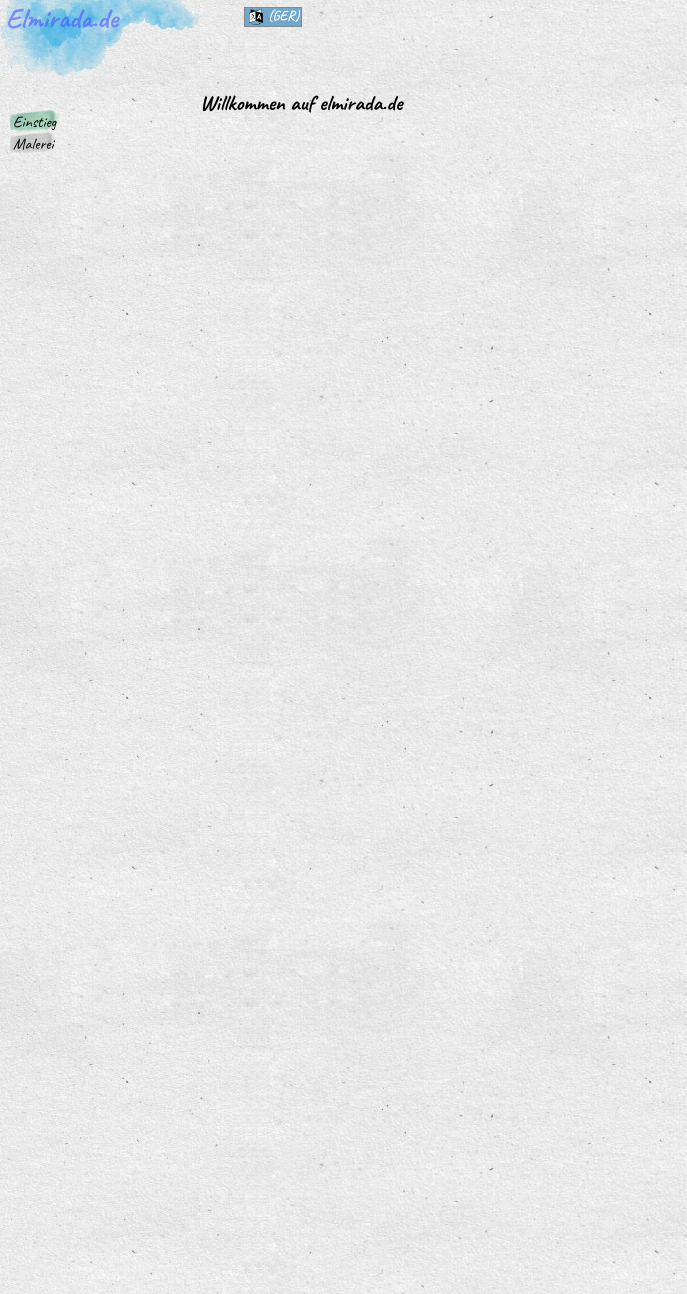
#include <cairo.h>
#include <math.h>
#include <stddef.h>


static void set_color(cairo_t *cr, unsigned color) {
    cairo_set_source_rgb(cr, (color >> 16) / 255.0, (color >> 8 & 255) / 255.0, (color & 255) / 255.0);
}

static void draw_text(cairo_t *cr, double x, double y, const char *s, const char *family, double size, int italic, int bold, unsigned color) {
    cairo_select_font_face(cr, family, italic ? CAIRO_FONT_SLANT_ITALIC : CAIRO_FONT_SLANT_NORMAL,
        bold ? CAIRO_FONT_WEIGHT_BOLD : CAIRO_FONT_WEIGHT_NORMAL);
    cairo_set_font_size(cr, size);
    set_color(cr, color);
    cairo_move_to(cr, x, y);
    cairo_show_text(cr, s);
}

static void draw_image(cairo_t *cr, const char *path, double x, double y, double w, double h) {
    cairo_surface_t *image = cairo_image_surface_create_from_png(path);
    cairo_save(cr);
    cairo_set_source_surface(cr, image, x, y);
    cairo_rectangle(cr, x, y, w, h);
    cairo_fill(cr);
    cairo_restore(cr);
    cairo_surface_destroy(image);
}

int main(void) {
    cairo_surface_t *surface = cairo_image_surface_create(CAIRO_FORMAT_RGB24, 687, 1294);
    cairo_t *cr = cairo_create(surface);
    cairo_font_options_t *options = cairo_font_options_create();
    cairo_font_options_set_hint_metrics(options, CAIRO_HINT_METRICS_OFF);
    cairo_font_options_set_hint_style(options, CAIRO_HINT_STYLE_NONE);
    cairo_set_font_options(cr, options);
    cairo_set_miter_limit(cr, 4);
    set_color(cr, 0xFFFFFF);
    cairo_paint(cr);
    draw_image(cr, "assets/img1.png", 0, 0, 687, 1294);
    set_color(cr, 0x6FA7CF);
    cairo_rectangle(cr, 244.5, 7.5, 57, 19);
    cairo_fill_preserve(cr);
    set_color(cr, 0x888888);
    cairo_set_line_width(cr, 1);
    cairo_stroke(cr);
    draw_image(cr, "assets/img2.png", 249, 9, 14, 16);
    draw_text(cr, 268, 20, "(GER)", "Caveat", 14, 0, 1, 0xFFFFFF);
    draw_text(cr, 200, 110, "Willkommen auf elmirada.de", "Caveat", 21.5, 0, 1, 0x000000);
    draw_image(cr, "assets/img3.png", 0, 0, 200, 77);
    draw_image(cr, "assets/img4.png", 10, 110, 49, 22);
    draw_text(cr, 13, 127, "Einstieg", "Caveat", 16, 0, 0, 0x000000);
    draw_image(cr, "assets/img5.png", 10, 132, 46, 22);
    draw_text(cr, 13, 149, "Malerei", "Caveat", 16, 0, 0, 0x000000);
    cairo_surface_write_to_png(surface, "output.png");
    cairo_font_options_destroy(options);
    cairo_destroy(cr);
    cairo_surface_destroy(surface);
    return 0;
}
